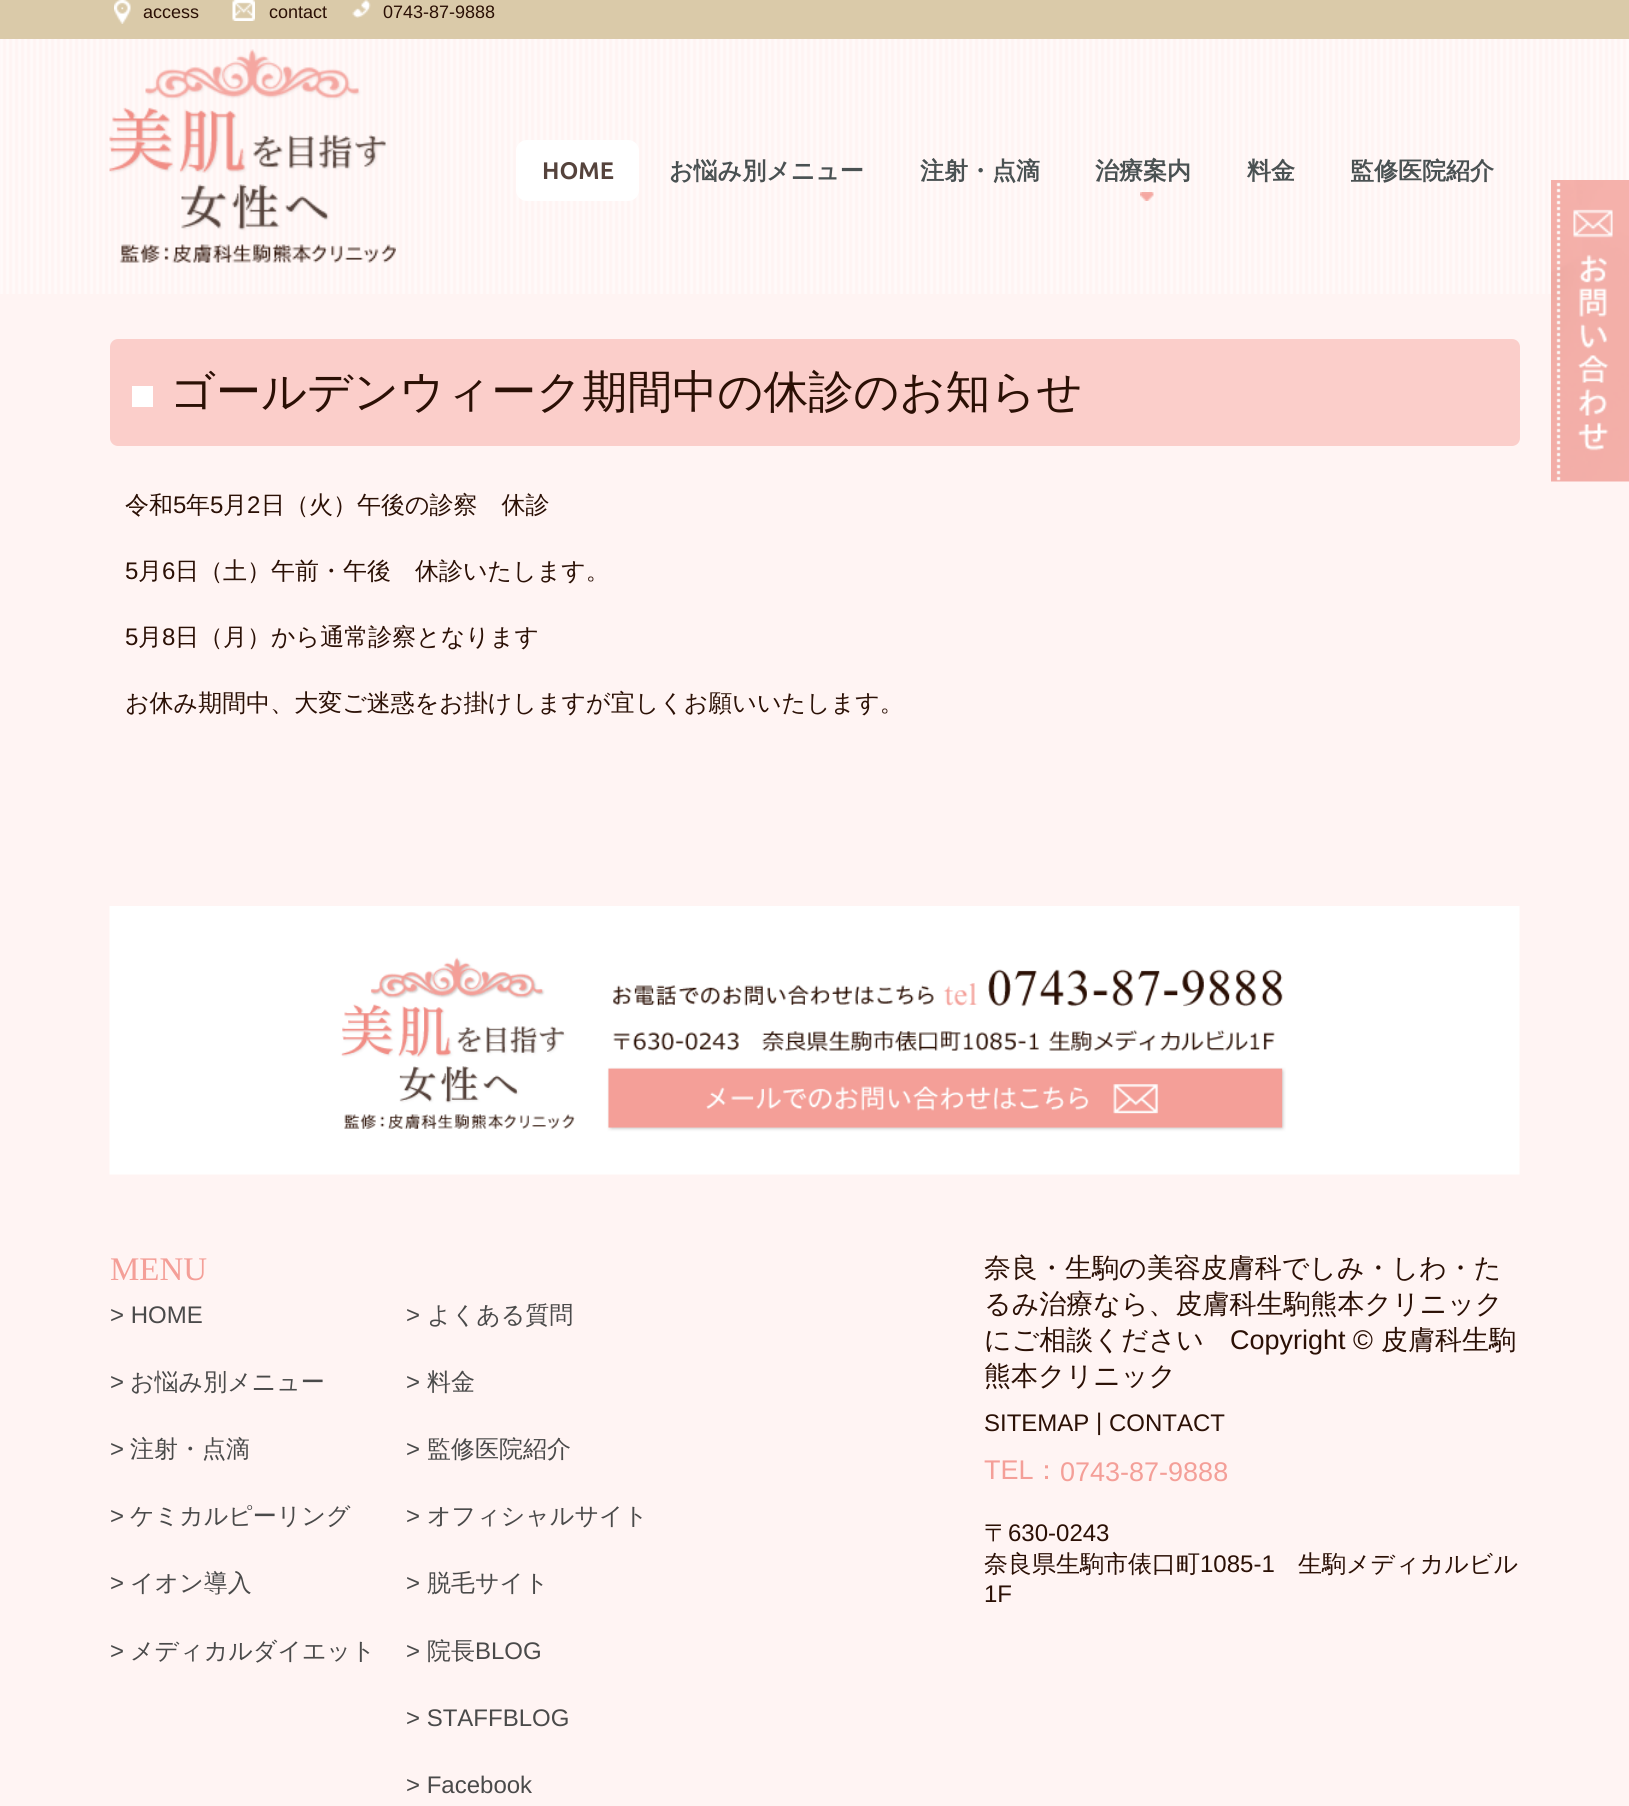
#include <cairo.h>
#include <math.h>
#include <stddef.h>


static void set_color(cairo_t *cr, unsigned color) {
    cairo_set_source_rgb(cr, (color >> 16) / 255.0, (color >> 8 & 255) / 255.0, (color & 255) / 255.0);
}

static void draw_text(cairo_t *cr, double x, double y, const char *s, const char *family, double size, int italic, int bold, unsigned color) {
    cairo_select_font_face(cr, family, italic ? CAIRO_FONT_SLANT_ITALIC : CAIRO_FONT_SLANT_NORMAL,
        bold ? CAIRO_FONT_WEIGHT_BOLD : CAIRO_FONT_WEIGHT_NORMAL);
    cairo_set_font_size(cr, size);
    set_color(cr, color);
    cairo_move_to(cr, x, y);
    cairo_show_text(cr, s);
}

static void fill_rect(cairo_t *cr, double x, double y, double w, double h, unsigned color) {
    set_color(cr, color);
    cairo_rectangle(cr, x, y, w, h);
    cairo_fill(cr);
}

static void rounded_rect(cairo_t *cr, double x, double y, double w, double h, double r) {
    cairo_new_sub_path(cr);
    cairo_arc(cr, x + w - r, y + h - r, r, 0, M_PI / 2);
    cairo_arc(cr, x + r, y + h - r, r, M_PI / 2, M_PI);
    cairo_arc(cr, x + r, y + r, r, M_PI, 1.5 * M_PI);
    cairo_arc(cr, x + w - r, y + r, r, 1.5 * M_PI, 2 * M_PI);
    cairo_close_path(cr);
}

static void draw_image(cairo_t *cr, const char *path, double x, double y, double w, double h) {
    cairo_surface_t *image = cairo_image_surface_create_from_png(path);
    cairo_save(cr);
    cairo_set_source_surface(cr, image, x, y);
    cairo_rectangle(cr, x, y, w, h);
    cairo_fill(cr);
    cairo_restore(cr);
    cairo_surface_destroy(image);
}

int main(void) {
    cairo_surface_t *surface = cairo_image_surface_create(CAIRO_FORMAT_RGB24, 1629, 1806);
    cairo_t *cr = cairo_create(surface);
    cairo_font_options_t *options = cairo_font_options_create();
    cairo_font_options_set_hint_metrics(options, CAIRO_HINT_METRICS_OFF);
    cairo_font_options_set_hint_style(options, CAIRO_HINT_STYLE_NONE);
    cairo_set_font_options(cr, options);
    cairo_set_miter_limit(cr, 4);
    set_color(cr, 0xFFF4F3);
    cairo_paint(cr);
    fill_rect(cr, 0, 0, 1629, 39, 0xDACAA9);
    draw_image(cr, "assets/img1.png", 114, 0, 17, 24);
    draw_text(cr, 143, 18, "access", "Liberation Sans", 18, 0, 0, 0x2B1005);
    draw_image(cr, "assets/img2.png", 232, 0, 23, 21);
    draw_text(cr, 269, 18, "contact", "Liberation Sans", 18, 0, 0, 0x2B1005);
    draw_image(cr, "assets/img3.png", 352, 0, 19, 18);
    draw_text(cr, 383, 18, "0743-87-9888", "Liberation Sans", 18, 0, 0, 0x2B1005);
    draw_image(cr, "assets/img4.png", 0, 39, 1629, 255);
    draw_image(cr, "assets/img5.png", 109, 49, 287, 214);
    set_color(cr, 0xFFFFFF);
    rounded_rect(cr, 516, 140, 123, 61, 11);
    cairo_fill(cr);
    draw_text(cr, 542, 179, "HOME", "Ubuntu", 24, 0, 1, 0x55433C);
    draw_text(cr, 669, 179, "お悩み別メニュー", "WenQuanYi Zen Hei", 24, 0, 1, 0x4A5152);
    draw_text(cr, 920, 179, "注射・点滴", "WenQuanYi Zen Hei", 24, 0, 1, 0x4A5152);
    draw_text(cr, 1095, 179, "治療案内", "WenQuanYi Zen Hei", 24, 0, 1, 0x4A5152);
    draw_image(cr, "assets/img6.png", 1140, 192, 14, 9);
    draw_text(cr, 1247, 179, "料金", "WenQuanYi Zen Hei", 24, 0, 1, 0x4A5152);
    draw_text(cr, 1350, 179, "監修医院紹介", "WenQuanYi Zen Hei", 24, 0, 1, 0x4A5152);
    draw_image(cr, "assets/img7.png", 1551, 180, 78, 302);
    set_color(cr, 0xFBCECA);
    rounded_rect(cr, 110, 339, 1410, 107, 8);
    cairo_fill(cr);
    fill_rect(cr, 132, 386, 21, 21, 0xFFFFFF);
    draw_text(cr, 170, 407, "ゴールデンウィーク期間中の休診のお知らせ", "WenQuanYi Zen Hei Medium", 45, 0, 0, 0x2B1005);
    draw_text(cr, 125, 513, "令和", "WenQuanYi Zen Hei Medium", 24, 0, 0, 0x2B1005);
    draw_text(cr, 173, 513, "5", "Liberation Sans", 24, 0, 0, 0x2B1005);
    draw_text(cr, 186, 513, "年", "WenQuanYi Zen Hei Medium", 24, 0, 0, 0x2B1005);
    draw_text(cr, 210, 513, "5", "Liberation Sans", 24, 0, 0, 0x2B1005);
    draw_text(cr, 223, 513, "月", "WenQuanYi Zen Hei Medium", 24, 0, 0, 0x2B1005);
    draw_text(cr, 247, 513, "2", "Liberation Sans", 24, 0, 0, 0x2B1005);
    draw_text(cr, 261, 513, "日（火）午後の診察　休診", "WenQuanYi Zen Hei Medium", 24, 0, 0, 0x2B1005);
    draw_text(cr, 125, 579, "5", "Liberation Sans", 24, 0, 0, 0x2B1005);
    draw_text(cr, 138, 579, "月", "WenQuanYi Zen Hei Medium", 24, 0, 0, 0x2B1005);
    draw_text(cr, 162, 579, "6", "Liberation Sans", 24, 0, 0, 0x2B1005);
    draw_text(cr, 175, 579, "日（土）午前・午後　休診いたします。", "WenQuanYi Zen Hei Medium", 24, 0, 0, 0x2B1005);
    draw_text(cr, 125, 645, "5", "Liberation Sans", 24, 0, 0, 0x2B1005);
    draw_text(cr, 138, 645, "月", "WenQuanYi Zen Hei Medium", 24, 0, 0, 0x2B1005);
    draw_text(cr, 162, 645, "8", "Liberation Sans", 24, 0, 0, 0x2B1005);
    draw_text(cr, 175, 645, "日（月）から通常診察となります", "WenQuanYi Zen Hei Medium", 24, 0, 0, 0x2B1005);
    draw_text(cr, 125, 711, "お休み期間中、大変ご迷惑をお掛けしますが宜しくお願いいたします。", "WenQuanYi Zen Hei Medium", 24, 0, 0, 0x2B1005);
    draw_image(cr, "assets/img8.png", 109, 906, 1411, 269);
    draw_text(cr, 110, 1280, "MENU", "Liberation Serif", 33, 0, 0, 0xF49F98);
    draw_text(cr, 110, 1323, "> HOME", "Liberation Sans", 24, 0, 0, 0x4A4A4A);
    draw_text(cr, 110, 1390, ">", "Liberation Sans", 24, 0, 0, 0x4A4A4A);
    draw_text(cr, 130, 1390, "お悩み別メニュー", "WenQuanYi Zen Hei Medium", 24, 0, 0, 0x4A4A4A);
    draw_text(cr, 110, 1457, ">", "Liberation Sans", 24, 0, 0, 0x4A4A4A);
    draw_text(cr, 130, 1457, "注射・点滴", "WenQuanYi Zen Hei Medium", 24, 0, 0, 0x4A4A4A);
    draw_text(cr, 110, 1524, ">", "Liberation Sans", 24, 0, 0, 0x4A4A4A);
    draw_text(cr, 130, 1524, "ケミカルピーリング", "WenQuanYi Zen Hei Medium", 24, 0, 0, 0x4A4A4A);
    draw_text(cr, 110, 1591, ">", "Liberation Sans", 24, 0, 0, 0x4A4A4A);
    draw_text(cr, 130, 1591, "イオン導入", "WenQuanYi Zen Hei Medium", 24, 0, 0, 0x4A4A4A);
    draw_text(cr, 110, 1659, ">", "Liberation Sans", 24, 0, 0, 0x4A4A4A);
    draw_text(cr, 130, 1659, "メディカルダイエット", "WenQuanYi Zen Hei Medium", 24, 0, 0, 0x4A4A4A);
    draw_text(cr, 406, 1323, ">", "Liberation Sans", 24, 0, 0, 0x4A4A4A);
    draw_text(cr, 427, 1323, "よくある質問", "WenQuanYi Zen Hei Medium", 24, 0, 0, 0x4A4A4A);
    draw_text(cr, 406, 1390, ">", "Liberation Sans", 24, 0, 0, 0x4A4A4A);
    draw_text(cr, 427, 1390, "料金", "WenQuanYi Zen Hei Medium", 24, 0, 0, 0x4A4A4A);
    draw_text(cr, 406, 1457, ">", "Liberation Sans", 24, 0, 0, 0x4A4A4A);
    draw_text(cr, 427, 1457, "監修医院紹介", "WenQuanYi Zen Hei Medium", 24, 0, 0, 0x4A4A4A);
    draw_text(cr, 406, 1524, ">", "Liberation Sans", 24, 0, 0, 0x4A4A4A);
    draw_text(cr, 427, 1524, "オフィシャルサイト", "WenQuanYi Zen Hei Medium", 24, 0, 0, 0x4A4A4A);
    draw_text(cr, 406, 1591, ">", "Liberation Sans", 24, 0, 0, 0x4A4A4A);
    draw_text(cr, 427, 1591, "脱毛サイト", "WenQuanYi Zen Hei Medium", 24, 0, 0, 0x4A4A4A);
    draw_text(cr, 406, 1659, ">", "Liberation Sans", 24, 0, 0, 0x4A4A4A);
    draw_text(cr, 427, 1659, "院長", "WenQuanYi Zen Hei Medium", 24, 0, 0, 0x4A4A4A);
    draw_text(cr, 475, 1659, "BLOG", "Liberation Sans", 24, 0, 0, 0x4A4A4A);
    draw_text(cr, 406, 1726, "> STAFFBLOG", "Liberation Sans", 24, 0, 0, 0x4A4A4A);
    draw_text(cr, 406, 1793, "> Facebook", "Liberation Sans", 24, 0, 0, 0x4A4A4A);
    draw_text(cr, 984, 1277, "奈良・生駒の美容皮膚科でしみ・しわ・た", "WenQuanYi Zen Hei Medium", 27, 0, 0, 0x2B1005);
    draw_text(cr, 984, 1313, "るみ治療なら、皮膚科生駒熊本クリニック", "WenQuanYi Zen Hei Medium", 27, 0, 0, 0x2B1005);
    draw_text(cr, 984, 1349, "にご相談ください", "WenQuanYi Zen Hei Medium", 27, 0, 0, 0x2B1005);
    draw_text(cr, 1230, 1349, "Copyright ©", "Liberation Sans", 27, 0, 0, 0x2B1005);
    draw_text(cr, 1381, 1349, "皮膚科生駒", "WenQuanYi Zen Hei Medium", 27, 0, 0, 0x2B1005);
    draw_text(cr, 984, 1385, "熊本クリニック", "WenQuanYi Zen Hei Medium", 27, 0, 0, 0x2B1005);
    draw_text(cr, 984, 1431, "SITEMAP", "Liberation Sans", 24, 0, 0, 0x2B1005);
    draw_text(cr, 1096, 1430, "|", "Liberation Sans", 24, 0, 0, 0x2B1005);
    draw_text(cr, 1109, 1431, "CONTACT", "Liberation Sans", 24, 0, 0, 0x2B1005);
    draw_text(cr, 984, 1479, "TEL", "Liberation Sans", 27, 0, 0, 0xF49F98);
    draw_text(cr, 1033, 1479, "：", "WenQuanYi Zen Hei Medium", 27, 0, 0, 0xF49F98);
    draw_text(cr, 1060, 1481, "0743-87-9888", "Liberation Sans", 27, 0, 0, 0xF49F98);
    draw_text(cr, 984, 1541, "〒", "WenQuanYi Zen Hei Medium", 24, 0, 0, 0x2B1005);
    draw_text(cr, 1008, 1541, "630-0243", "Liberation Sans", 24, 0, 0, 0x2B1005);
    draw_text(cr, 984, 1572, "奈良県生駒市俵口町", "WenQuanYi Zen Hei Medium", 24, 0, 0, 0x2B1005);
    draw_text(cr, 1200, 1572, "1085-1", "Liberation Sans", 24, 0, 0, 0x2B1005);
    draw_text(cr, 1298, 1572, "生駒メディカルビル", "WenQuanYi Zen Hei Medium", 24, 0, 0, 0x2B1005);
    draw_text(cr, 984, 1602, "1F", "Liberation Sans", 24, 0, 0, 0x2B1005);
    cairo_surface_write_to_png(surface, "output.png");
    cairo_font_options_destroy(options);
    cairo_destroy(cr);
    cairo_surface_destroy(surface);
    return 0;
}
